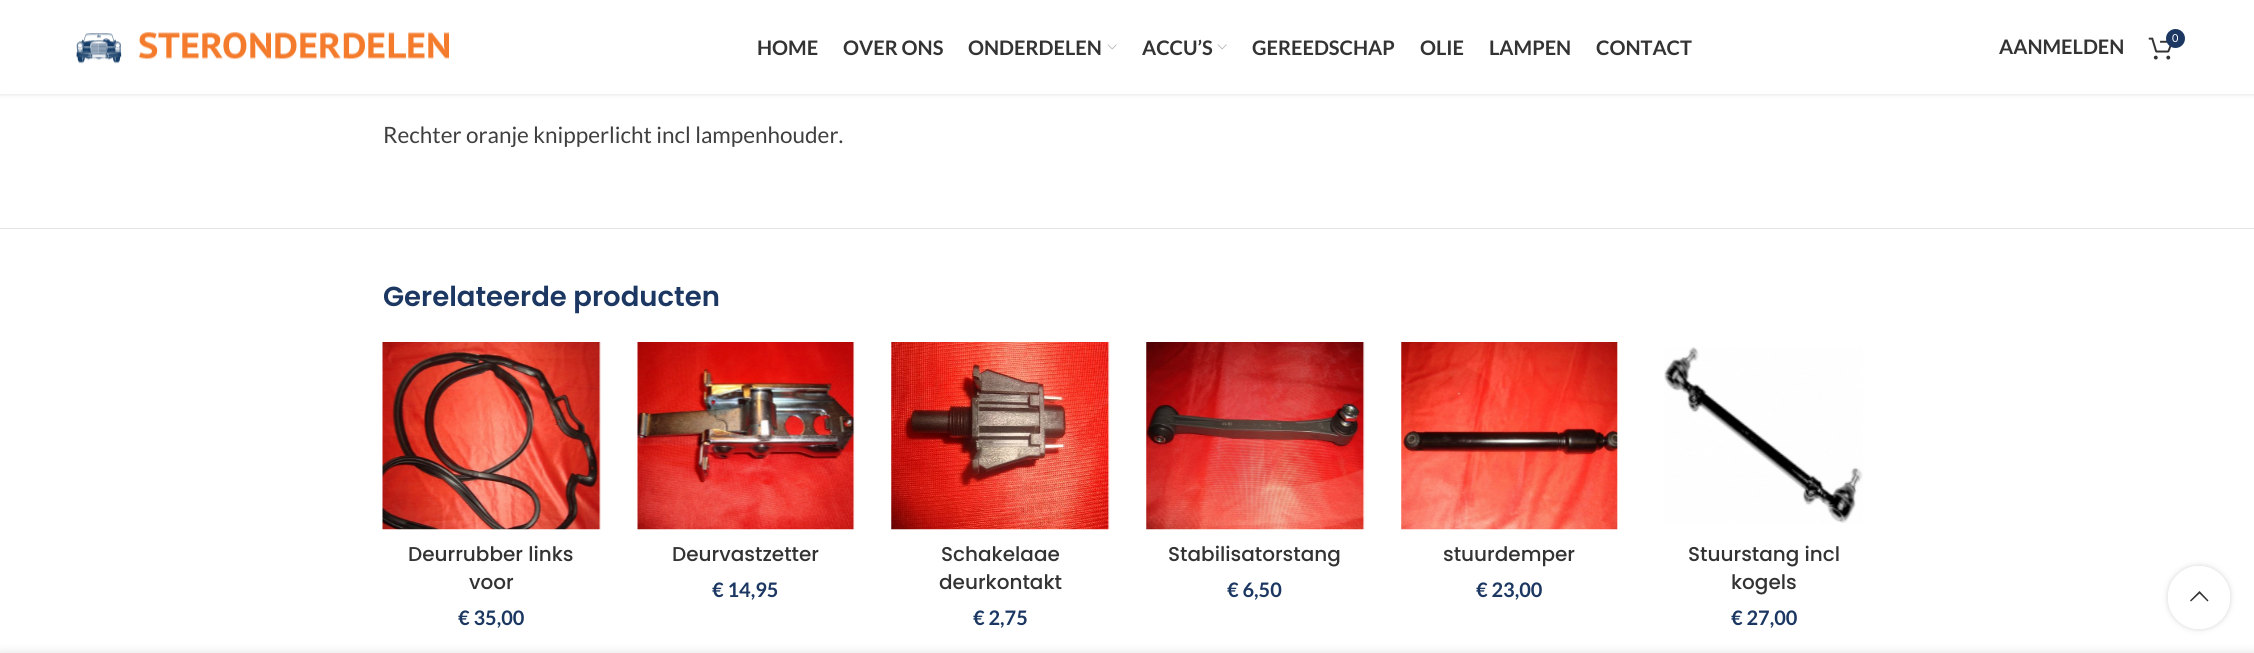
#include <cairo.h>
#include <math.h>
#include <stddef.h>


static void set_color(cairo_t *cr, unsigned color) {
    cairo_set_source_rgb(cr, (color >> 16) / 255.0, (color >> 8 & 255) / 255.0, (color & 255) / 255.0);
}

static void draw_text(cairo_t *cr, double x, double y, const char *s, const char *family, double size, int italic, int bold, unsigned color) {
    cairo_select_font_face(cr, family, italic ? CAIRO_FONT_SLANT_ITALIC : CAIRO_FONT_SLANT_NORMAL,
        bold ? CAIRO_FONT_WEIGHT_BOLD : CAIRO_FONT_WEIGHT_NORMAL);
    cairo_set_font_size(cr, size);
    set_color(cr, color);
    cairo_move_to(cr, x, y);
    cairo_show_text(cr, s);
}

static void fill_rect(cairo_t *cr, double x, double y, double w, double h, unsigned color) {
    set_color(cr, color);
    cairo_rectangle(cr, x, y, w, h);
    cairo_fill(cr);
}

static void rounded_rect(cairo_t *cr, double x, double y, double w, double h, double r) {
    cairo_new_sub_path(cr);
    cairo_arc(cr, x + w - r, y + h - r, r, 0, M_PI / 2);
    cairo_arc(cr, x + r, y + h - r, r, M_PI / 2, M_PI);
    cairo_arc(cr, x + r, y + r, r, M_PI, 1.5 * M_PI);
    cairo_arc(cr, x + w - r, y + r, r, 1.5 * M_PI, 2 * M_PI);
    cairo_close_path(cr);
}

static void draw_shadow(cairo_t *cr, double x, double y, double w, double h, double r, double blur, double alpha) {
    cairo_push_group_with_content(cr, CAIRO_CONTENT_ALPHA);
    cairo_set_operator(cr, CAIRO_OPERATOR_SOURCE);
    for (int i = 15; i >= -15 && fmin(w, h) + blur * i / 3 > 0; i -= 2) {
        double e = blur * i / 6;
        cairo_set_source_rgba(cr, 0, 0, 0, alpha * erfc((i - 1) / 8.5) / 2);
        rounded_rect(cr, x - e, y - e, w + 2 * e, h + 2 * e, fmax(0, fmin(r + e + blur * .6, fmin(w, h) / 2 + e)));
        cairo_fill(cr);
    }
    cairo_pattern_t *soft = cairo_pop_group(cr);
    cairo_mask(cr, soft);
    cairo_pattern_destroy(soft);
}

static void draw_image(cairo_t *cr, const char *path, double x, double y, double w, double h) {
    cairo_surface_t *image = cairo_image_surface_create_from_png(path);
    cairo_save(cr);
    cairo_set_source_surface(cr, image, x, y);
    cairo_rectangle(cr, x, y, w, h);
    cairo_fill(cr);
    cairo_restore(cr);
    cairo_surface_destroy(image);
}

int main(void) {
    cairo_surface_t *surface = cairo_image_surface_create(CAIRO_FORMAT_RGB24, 2254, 653);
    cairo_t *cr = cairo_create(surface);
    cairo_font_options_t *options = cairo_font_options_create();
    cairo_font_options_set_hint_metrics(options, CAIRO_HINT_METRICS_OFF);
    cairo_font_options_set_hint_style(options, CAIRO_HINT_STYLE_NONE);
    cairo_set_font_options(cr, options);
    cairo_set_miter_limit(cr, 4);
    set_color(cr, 0xFFFFFF);
    cairo_paint(cr);
    set_color(cr, 0x000000);
    draw_shadow(cr, 0, 1, 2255, 94, 0, 2, 0.1);
    fill_rect(cr, 0, 0, 2254, 94, 0xFFFFFF);
    draw_image(cr, "assets/img1.png", 76, 32, 373, 32);
    draw_text(cr, 757, 55, "HOME", "Lato", 20, 0, 1, 0x333333);
    draw_text(cr, 843, 55, "OVER ONS", "Lato", 20, 0, 1, 0x333333);
    draw_text(cr, 968, 55, "ONDERDELEN", "Lato", 20, 0, 1, 0x333333);
    draw_image(cr, "assets/img2.png", 1107, 44, 10, 6);
    draw_text(cr, 1142, 55, "ACCU’S", "Lato", 20, 0, 1, 0x333333);
    draw_image(cr, "assets/img2.png", 1217, 44, 10, 6);
    draw_text(cr, 1252, 55, "GEREEDSCHAP", "Lato", 20, 0, 1, 0x333333);
    draw_text(cr, 1420, 55, "OLIE", "Lato", 20, 0, 1, 0x333333);
    draw_text(cr, 1489, 55, "LAMPEN", "Lato", 20, 0, 1, 0x333333);
    draw_text(cr, 1596, 55, "CONTACT", "Lato", 20, 0, 1, 0x333333);
    draw_image(cr, "assets/img3.png", 2148, 37, 24, 23);
    set_color(cr, 0x1B3762);
    cairo_arc(cr, 2175.5, 38.5, 9.5, 0, 2 * M_PI);
    cairo_fill(cr);
    draw_text(cr, 2172, 42, "0", "Lato", 11, 0, 0, 0xFFFFFF);
    draw_text(cr, 1999, 54, "AANMELDEN", "Lato", 20, 0, 1, 0x333333);
    fill_rect(cr, 0, 228, 2254, 1, 0xE4E4E4);
    draw_text(cr, 383, 143, "Rechter oranje knipperlicht incl lampenhouder.", "Lato", 22.5, 0, 0, 0x3F3F3F);
    draw_text(cr, 383, 306, "Gerelateerde producten", "Poppins SemiBold", 27.5, 0, 0, 0x1B3762);
    draw_image(cr, "assets/img4.png", 382, 342, 219, 188);
    draw_text(cr, 408, 561, "Deurrubber links", "Poppins Medium", 20, 0, 0, 0x333333);
    draw_text(cr, 469, 589, "voor", "Poppins Medium", 20, 0, 0, 0x333333);
    draw_text(cr, 458, 625, "€ 35,00", "Lato", 20, 0, 1, 0x1B3762);
    draw_image(cr, "assets/img5.png", 637, 342, 218, 188);
    draw_text(cr, 672, 561, "Deurvastzetter", "Poppins Medium", 20, 0, 0, 0x333333);
    draw_text(cr, 712, 597, "€ 14,95", "Lato", 20, 0, 1, 0x1B3762);
    draw_image(cr, "assets/img6.png", 891, 342, 219, 188);
    draw_text(cr, 941, 561, "Schakelaae", "Poppins Medium", 20, 0, 0, 0x333333);
    draw_text(cr, 939, 589, "deurkontakt", "Poppins Medium", 20, 0, 0, 0x333333);
    draw_text(cr, 973, 625, "€ 2,75", "Lato", 20, 0, 1, 0x1B3762);
    draw_image(cr, "assets/img7.png", 1146, 342, 219, 188);
    draw_text(cr, 1168, 561, "Stabilisatorstang", "Poppins Medium", 20, 0, 0, 0x333333);
    draw_text(cr, 1227, 597, "€ 6,50", "Lato", 20, 0, 1, 0x1B3762);
    draw_image(cr, "assets/img8.png", 1401, 342, 217, 188);
    draw_text(cr, 1443, 561, "stuurdemper", "Poppins Medium", 20, 0, 0, 0x333333);
    draw_text(cr, 1476, 597, "€ 23,00", "Lato", 20, 0, 1, 0x1B3762);
    draw_image(cr, "assets/img9.png", 1664, 347, 199, 176);
    draw_text(cr, 1688, 561, "Stuurstang incl", "Poppins Medium", 20, 0, 0, 0x333333);
    draw_text(cr, 1731, 589, "kogels", "Poppins Medium", 20, 0, 0, 0x333333);
    draw_text(cr, 1731, 625, "€ 27,00", "Lato", 20, 0, 1, 0x1B3762);
    cairo_save(cr);
    cairo_set_fill_rule(cr, CAIRO_FILL_RULE_EVEN_ODD);
    cairo_new_path(cr);
    cairo_move_to(cr, 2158, 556);
    cairo_line_to(cr, 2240, 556);
    cairo_line_to(cr, 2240, 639);
    cairo_line_to(cr, 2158, 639);
    cairo_close_path(cr);
    cairo_move_to(cr, 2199, 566);
    cairo_curve_to(cr, 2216, 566, 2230, 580, 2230, 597);
    cairo_line_to(cr, 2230, 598);
    cairo_curve_to(cr, 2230, 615, 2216, 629, 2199, 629);
    cairo_curve_to(cr, 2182, 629, 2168, 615, 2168, 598);
    cairo_line_to(cr, 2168, 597);
    cairo_curve_to(cr, 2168, 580, 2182, 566, 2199, 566);
    cairo_close_path(cr);
    cairo_clip(cr);
    set_color(cr, 0x000000);
    draw_shadow(cr, 2168, 566, 62, 63, 31, 3, 0.17);
    cairo_restore(cr);
    cairo_set_source_rgba(cr, 1, 1, 1, 0.9);
    rounded_rect(cr, 2168, 566, 62, 63, 31);
    cairo_fill(cr);
    set_color(cr, 0x333333);
    cairo_new_path(cr);
    cairo_move_to(cr, 2207.5, 601.5);
    cairo_line_to(cr, 2208.5, 600.5);
    cairo_line_to(cr, 2199.5, 591);
    cairo_line_to(cr, 2190, 600.5);
    cairo_line_to(cr, 2191, 601.5);
    cairo_line_to(cr, 2199.5, 593.5);
    cairo_close_path(cr);
    cairo_fill(cr);
    set_color(cr, 0x000000);
    draw_shadow(cr, 0, 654, 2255, 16, 0, 5.5, 0.14);
    cairo_surface_write_to_png(surface, "output.png");
    cairo_font_options_destroy(options);
    cairo_destroy(cr);
    cairo_surface_destroy(surface);
    return 0;
}
